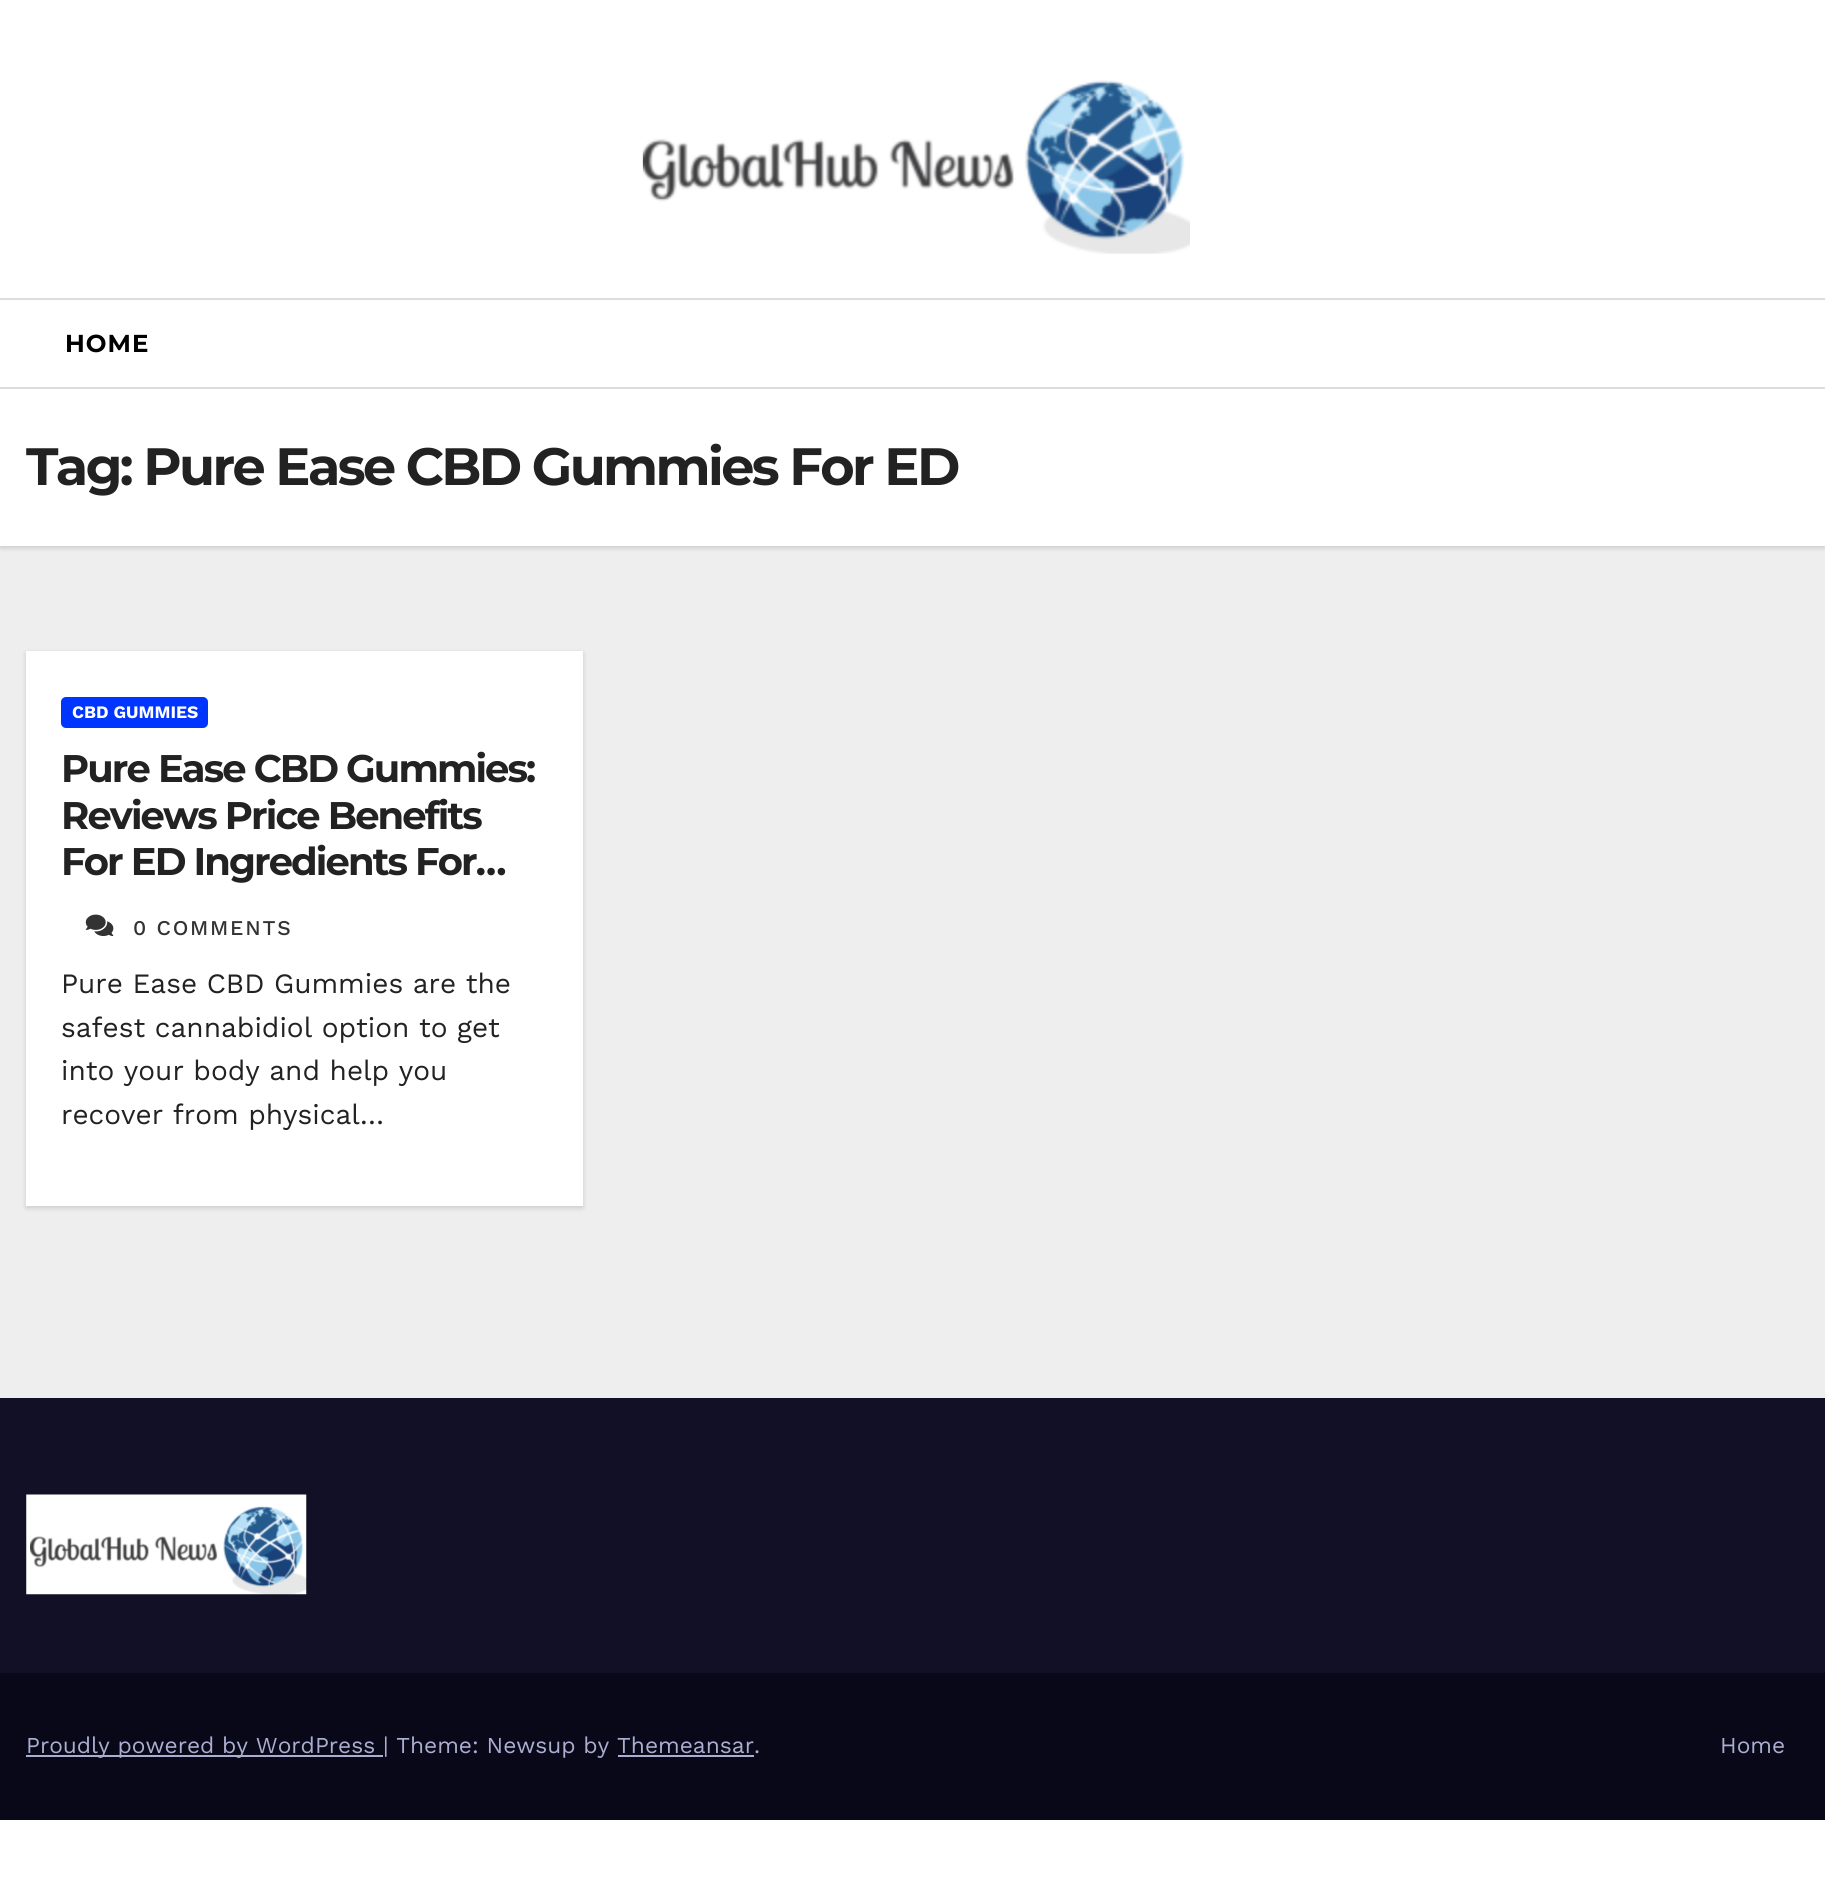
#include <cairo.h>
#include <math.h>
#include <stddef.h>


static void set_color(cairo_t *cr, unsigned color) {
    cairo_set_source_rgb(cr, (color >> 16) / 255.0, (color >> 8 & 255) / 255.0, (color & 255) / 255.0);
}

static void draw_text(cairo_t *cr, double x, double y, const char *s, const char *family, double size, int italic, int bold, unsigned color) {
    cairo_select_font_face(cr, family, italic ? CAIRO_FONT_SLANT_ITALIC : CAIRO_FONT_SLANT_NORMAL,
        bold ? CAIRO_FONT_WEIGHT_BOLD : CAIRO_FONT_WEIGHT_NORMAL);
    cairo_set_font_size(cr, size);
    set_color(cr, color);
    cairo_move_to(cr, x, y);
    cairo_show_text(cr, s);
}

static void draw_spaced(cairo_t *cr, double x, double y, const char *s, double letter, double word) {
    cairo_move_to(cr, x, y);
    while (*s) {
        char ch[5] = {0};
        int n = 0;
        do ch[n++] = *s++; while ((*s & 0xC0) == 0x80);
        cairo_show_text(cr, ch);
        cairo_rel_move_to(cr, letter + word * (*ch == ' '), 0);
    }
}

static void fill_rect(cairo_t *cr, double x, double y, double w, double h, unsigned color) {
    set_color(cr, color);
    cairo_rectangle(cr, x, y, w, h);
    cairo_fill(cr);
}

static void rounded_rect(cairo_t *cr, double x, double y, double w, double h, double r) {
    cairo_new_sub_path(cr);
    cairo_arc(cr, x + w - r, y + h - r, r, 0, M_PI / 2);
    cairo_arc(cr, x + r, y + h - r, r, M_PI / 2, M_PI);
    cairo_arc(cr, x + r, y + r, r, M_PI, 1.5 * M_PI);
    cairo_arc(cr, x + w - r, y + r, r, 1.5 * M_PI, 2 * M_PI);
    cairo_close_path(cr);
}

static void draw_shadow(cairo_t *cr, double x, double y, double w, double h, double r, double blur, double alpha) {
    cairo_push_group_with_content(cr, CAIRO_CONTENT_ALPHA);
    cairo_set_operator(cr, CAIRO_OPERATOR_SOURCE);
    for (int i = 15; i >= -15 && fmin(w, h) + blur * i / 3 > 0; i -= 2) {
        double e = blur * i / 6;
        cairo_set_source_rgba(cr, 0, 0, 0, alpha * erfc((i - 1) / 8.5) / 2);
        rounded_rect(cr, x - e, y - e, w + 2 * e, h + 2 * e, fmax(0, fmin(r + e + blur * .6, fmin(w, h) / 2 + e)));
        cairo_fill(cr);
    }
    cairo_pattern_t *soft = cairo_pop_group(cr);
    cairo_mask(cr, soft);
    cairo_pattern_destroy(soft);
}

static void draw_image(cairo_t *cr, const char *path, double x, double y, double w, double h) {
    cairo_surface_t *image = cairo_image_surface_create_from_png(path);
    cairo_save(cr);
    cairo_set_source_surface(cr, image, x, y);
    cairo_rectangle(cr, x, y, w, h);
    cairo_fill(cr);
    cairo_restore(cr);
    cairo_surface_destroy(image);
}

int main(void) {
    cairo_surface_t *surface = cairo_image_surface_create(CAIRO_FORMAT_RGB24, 1825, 1888);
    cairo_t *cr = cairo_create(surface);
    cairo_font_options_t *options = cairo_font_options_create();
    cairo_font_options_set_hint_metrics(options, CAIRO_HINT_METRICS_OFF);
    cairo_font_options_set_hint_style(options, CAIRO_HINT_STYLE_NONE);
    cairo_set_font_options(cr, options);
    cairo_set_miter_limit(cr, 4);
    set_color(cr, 0xFFFFFF);
    cairo_paint(cr);
    fill_rect(cr, 0, 546, 1825, 852, 0xEEEEEE);
    draw_image(cr, "assets/img1.png", 642, 80, 548, 174);
    set_color(cr, 0x000000);
    draw_shadow(cr, 0, 390, 1825, 158, 0, 2.5, 0.15);
    fill_rect(cr, 2, 386, 1821, 1, 0xFFFFFF);
    fill_rect(cr, 0, 298, 1825, 2, 0xDDDDDD);
    fill_rect(cr, 0, 387, 1825, 2, 0xDDDDDD);
    cairo_select_font_face(cr, "Montserrat", CAIRO_FONT_SLANT_NORMAL, CAIRO_FONT_WEIGHT_BOLD);
    cairo_set_font_size(cr, 24.5);
    set_color(cr, 0x000000);
    draw_spaced(cr, 65, 352, "HOME", 1, 0);
    fill_rect(cr, 0, 389, 1825, 157, 0xFFFFFF);
    cairo_set_font_size(cr, 52.5);
    set_color(cr, 0x222222);
    draw_spaced(cr, 26, 485, "Tag: Pure Ease CBD Gummies For ED", -2.6, 0);
    set_color(cr, 0x000000);
    draw_shadow(cr, 26, 653, 557, 555, 0, 2.5, 0.15);
    fill_rect(cr, 26, 651, 557, 555, 0xFFFFFF);
    set_color(cr, 0x0035FF);
    rounded_rect(cr, 61, 697, 147, 31, 5);
    cairo_fill(cr);
    draw_text(cr, 72, 718, "CBD GUMMIES", "Work Sans", 17.5, 0, 1, 0xFFFFFF);
    cairo_select_font_face(cr, "Montserrat", CAIRO_FONT_SLANT_NORMAL, CAIRO_FONT_WEIGHT_BOLD);
    cairo_set_font_size(cr, 38.5);
    set_color(cr, 0x222222);
    draw_spaced(cr, 61, 782, "Pure Ease CBD Gummies:", -1.9, 0);
    draw_spaced(cr, 61, 829, "Reviews Price Benefits", -1.9, 0);
    draw_spaced(cr, 61, 875, "For ED Ingredients For…", -1.9, 0);
    draw_image(cr, "assets/img2.png", 85, 914, 29, 22);
    cairo_select_font_face(cr, "Work Sans Medium", CAIRO_FONT_SLANT_NORMAL, CAIRO_FONT_WEIGHT_NORMAL);
    cairo_set_font_size(cr, 21);
    set_color(cr, 0x333333);
    draw_spaced(cr, 133, 935, "0 COMMENTS", 1.75, 0);
    draw_text(cr, 61, 993, "Pure Ease CBD Gummies are the", "Work Sans", 28, 0, 0, 0x222222);
    draw_text(cr, 61, 1037, "safest cannabidiol option to get", "Work Sans", 28, 0, 0, 0x222222);
    draw_text(cr, 61, 1080, "into your body and help you", "Work Sans", 28, 0, 0, 0x222222);
    draw_text(cr, 61, 1124, "recover from physical…", "Work Sans", 28, 0, 0, 0x222222);
    fill_rect(cr, 0, 1398, 1825, 275, 0x121026);
    draw_image(cr, "assets/img3.png", 26, 1494, 281, 101);
    fill_rect(cr, 0, 1673, 1825, 147, 0x090818);
    fill_rect(cr, 26, 1755, 357, 2, 0xAAAED1);
    draw_text(cr, 26, 1753, "Proudly powered by WordPress | Theme: Newsup by Themeansar.", "Work Sans", 22.75, 0, 0, 0xAAAED1);
    fill_rect(cr, 618, 1755, 136, 2, 0xAAAED1);
    draw_text(cr, 1720, 1753, "Home", "Work Sans", 22.75, 0, 0, 0xAAAED1);
    cairo_surface_write_to_png(surface, "output.png");
    cairo_font_options_destroy(options);
    cairo_destroy(cr);
    cairo_surface_destroy(surface);
    return 0;
}
